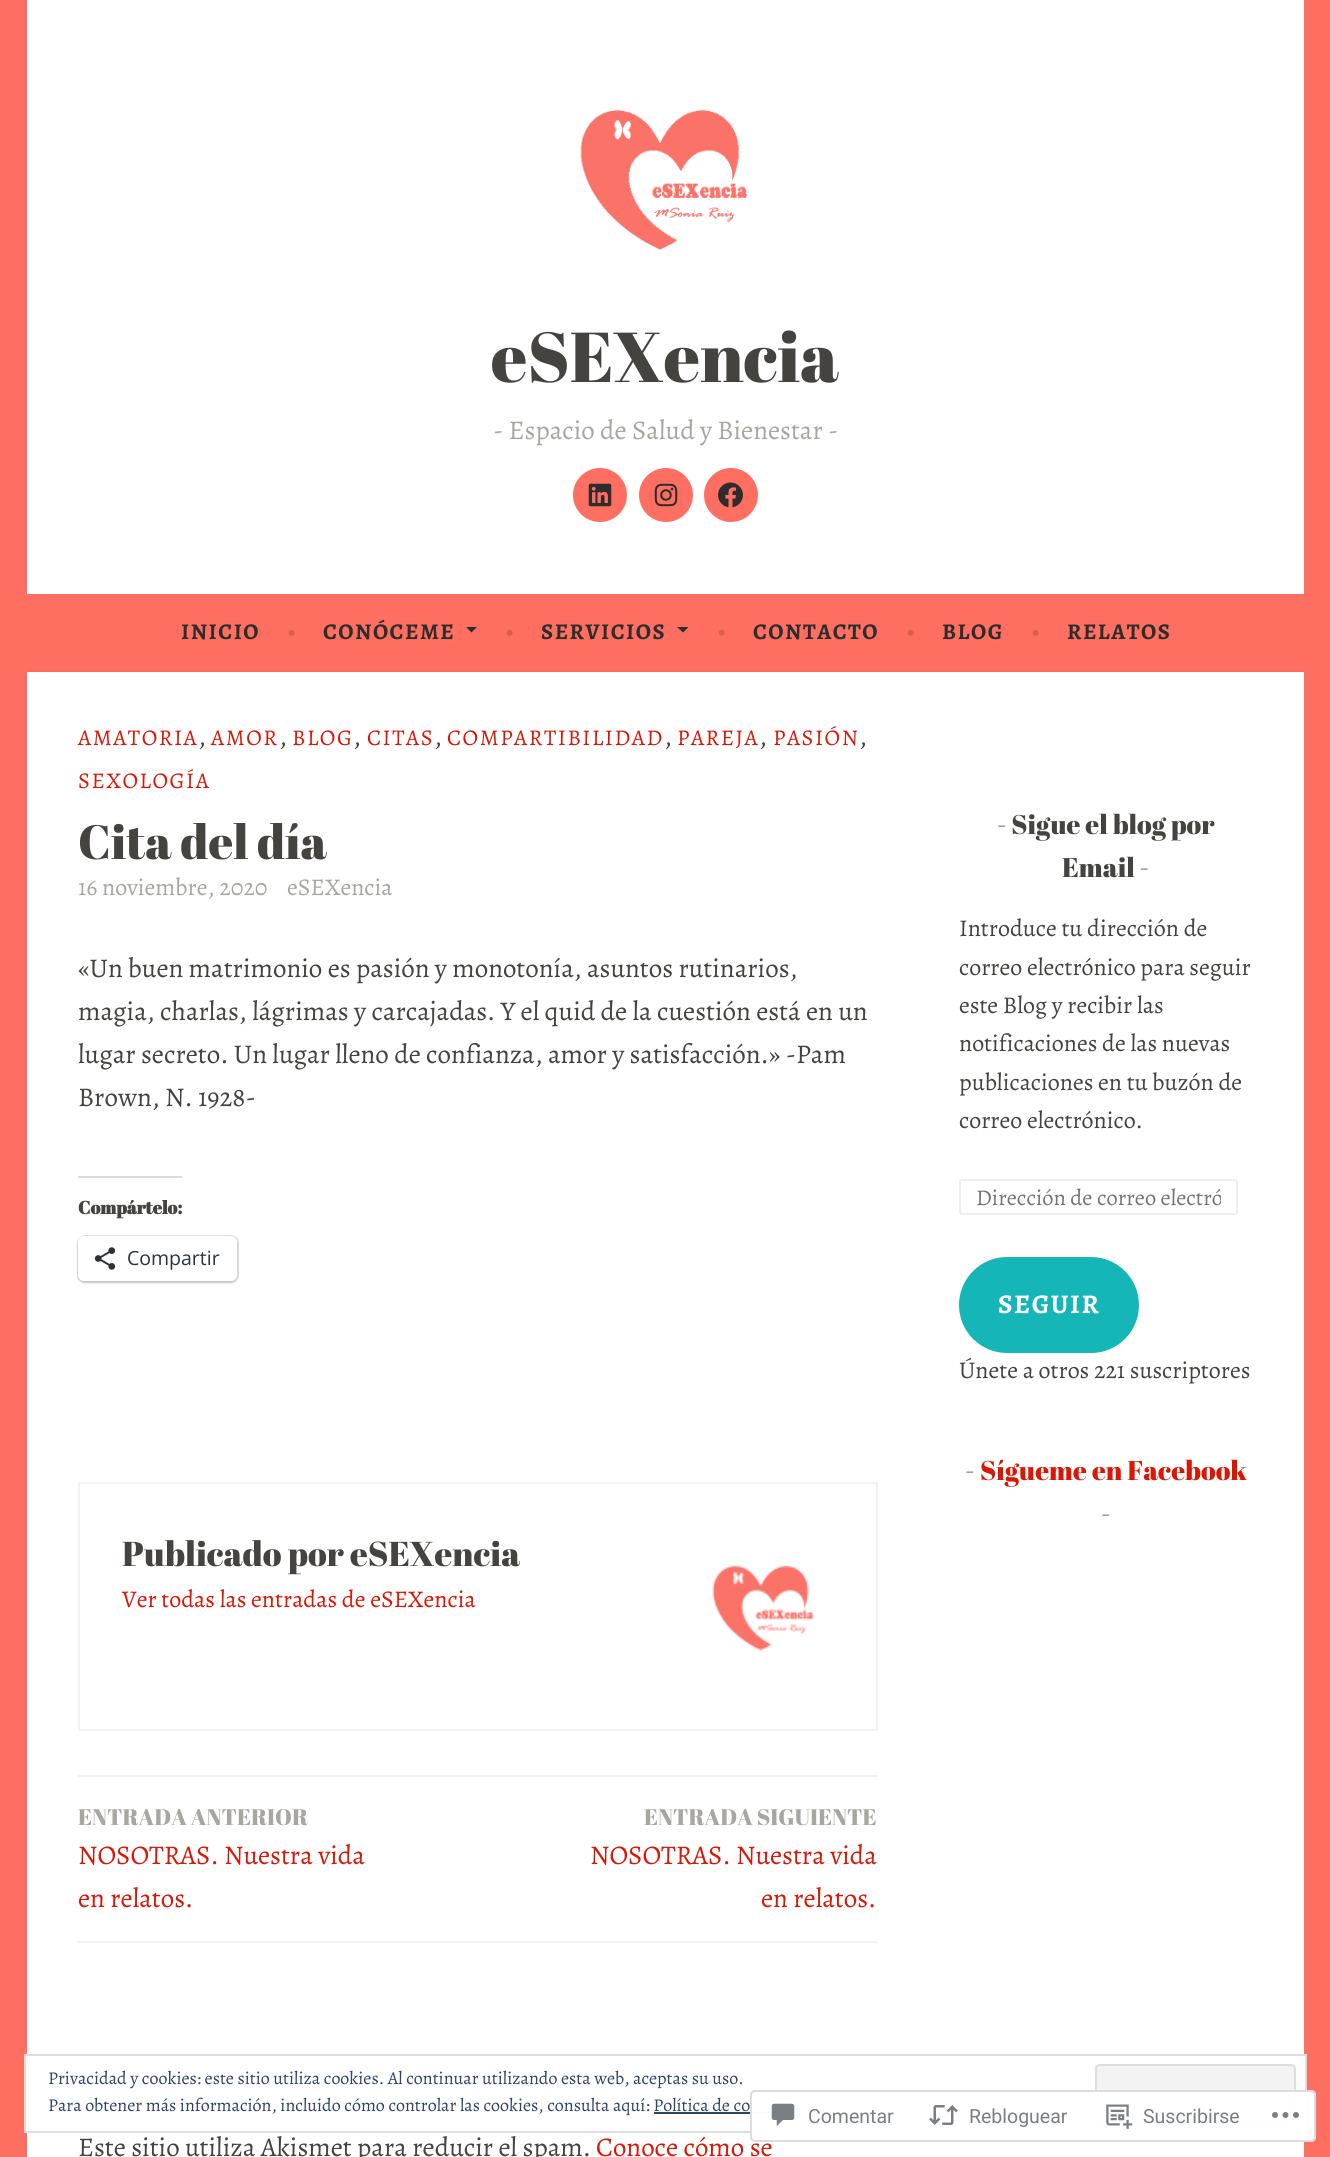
#include <cairo.h>
#include <math.h>
#include <stddef.h>


static void set_color(cairo_t *cr, unsigned color) {
    cairo_set_source_rgb(cr, (color >> 16) / 255.0, (color >> 8 & 255) / 255.0, (color & 255) / 255.0);
}

static void draw_text(cairo_t *cr, double x, double y, const char *s, const char *family, double size, int italic, int bold, unsigned color) {
    cairo_select_font_face(cr, family, italic ? CAIRO_FONT_SLANT_ITALIC : CAIRO_FONT_SLANT_NORMAL,
        bold ? CAIRO_FONT_WEIGHT_BOLD : CAIRO_FONT_WEIGHT_NORMAL);
    cairo_set_font_size(cr, size);
    set_color(cr, color);
    cairo_move_to(cr, x, y);
    cairo_show_text(cr, s);
}

static void draw_spaced(cairo_t *cr, double x, double y, const char *s, double letter, double word) {
    cairo_move_to(cr, x, y);
    while (*s) {
        char ch[5] = {0};
        int n = 0;
        do ch[n++] = *s++; while ((*s & 0xC0) == 0x80);
        cairo_show_text(cr, ch);
        cairo_rel_move_to(cr, letter + word * (*ch == ' '), 0);
    }
}

static void fill_rect(cairo_t *cr, double x, double y, double w, double h, unsigned color) {
    set_color(cr, color);
    cairo_rectangle(cr, x, y, w, h);
    cairo_fill(cr);
}

static void rounded_rect(cairo_t *cr, double x, double y, double w, double h, double r) {
    cairo_new_sub_path(cr);
    cairo_arc(cr, x + w - r, y + h - r, r, 0, M_PI / 2);
    cairo_arc(cr, x + r, y + h - r, r, M_PI / 2, M_PI);
    cairo_arc(cr, x + r, y + r, r, M_PI, 1.5 * M_PI);
    cairo_arc(cr, x + w - r, y + r, r, 1.5 * M_PI, 2 * M_PI);
    cairo_close_path(cr);
}

static void draw_shadow(cairo_t *cr, double x, double y, double w, double h, double r, double blur, double alpha) {
    cairo_push_group_with_content(cr, CAIRO_CONTENT_ALPHA);
    cairo_set_operator(cr, CAIRO_OPERATOR_SOURCE);
    for (int i = 15; i >= -15 && fmin(w, h) + blur * i / 3 > 0; i -= 2) {
        double e = blur * i / 6;
        cairo_set_source_rgba(cr, 0, 0, 0, alpha * erfc((i - 1) / 8.5) / 2);
        rounded_rect(cr, x - e, y - e, w + 2 * e, h + 2 * e, fmax(0, fmin(r + e + blur * .6, fmin(w, h) / 2 + e)));
        cairo_fill(cr);
    }
    cairo_pattern_t *soft = cairo_pop_group(cr);
    cairo_mask(cr, soft);
    cairo_pattern_destroy(soft);
}

static void draw_image(cairo_t *cr, const char *path, double x, double y, double w, double h) {
    cairo_surface_t *image = cairo_image_surface_create_from_png(path);
    cairo_save(cr);
    cairo_set_source_surface(cr, image, x, y);
    cairo_rectangle(cr, x, y, w, h);
    cairo_fill(cr);
    cairo_restore(cr);
    cairo_surface_destroy(image);
}

int main(void) {
    cairo_surface_t *surface = cairo_image_surface_create(CAIRO_FORMAT_RGB24, 1330, 2157);
    cairo_t *cr = cairo_create(surface);
    cairo_font_options_t *options = cairo_font_options_create();
    cairo_font_options_set_hint_metrics(options, CAIRO_HINT_METRICS_OFF);
    cairo_font_options_set_hint_style(options, CAIRO_HINT_STYLE_NONE);
    cairo_set_font_options(cr, options);
    cairo_set_miter_limit(cr, 4);
    set_color(cr, 0xFF6F61);
    cairo_paint(cr);
    fill_rect(cr, 27, 0, 1277, 594, 0xFFFFFF);
    draw_image(cr, "assets/img1.png", 580, 109, 168, 141);
    draw_text(cr, 491, 382, "eSEXencia", "Abril Fatface", 70.5, 0, 0, 0x444340);
    draw_text(cr, 493, 439, "- Espacio de Salud y Bienestar -", "Alegreya", 27, 0, 0, 0xA8A6A1);
    set_color(cr, 0xFF6F61);
    cairo_new_path(cr);
    cairo_arc(cr, 600, 495, 27, 0, 2 * M_PI);
    cairo_fill(cr);
    draw_image(cr, "assets/img2.png", 588, 483, 24, 24);
    cairo_arc(cr, 666, 495, 27, 0, 2 * M_PI);
    cairo_fill(cr);
    draw_image(cr, "assets/img3.png", 654, 483, 24, 24);
    cairo_arc(cr, 731, 495, 27, 0, 2 * M_PI);
    cairo_fill(cr);
    draw_image(cr, "assets/img4.png", 718, 482, 25, 26);
    fill_rect(cr, 27, 669, 1277, 3, 0xF76C5E);
    cairo_select_font_face(cr, "Alegreya", CAIRO_FONT_SLANT_NORMAL, CAIRO_FONT_WEIGHT_BOLD);
    cairo_set_font_size(cr, 22.5);
    set_color(cr, 0x2D2D2D);
    draw_spaced(cr, 181, 639, "INICIO", 1.5, 0);
    draw_text(cr, 287, 639, "•", "Alegreya", 27, 0, 0, 0xD95E52);
    cairo_select_font_face(cr, "Alegreya", CAIRO_FONT_SLANT_NORMAL, CAIRO_FONT_WEIGHT_BOLD);
    cairo_set_font_size(cr, 22.5);
    set_color(cr, 0x2D2D2D);
    draw_spaced(cr, 323, 639, "CONÓCEME", 1.5, 0);
    cairo_new_path(cr);
    cairo_move_to(cr, 466, 627);
    cairo_line_to(cr, 477, 627);
    cairo_line_to(cr, 471.5, 632.5);
    cairo_close_path(cr);
    cairo_fill(cr);
    draw_text(cr, 505, 639, "•", "Alegreya", 27, 0, 0, 0xD95E52);
    cairo_select_font_face(cr, "Alegreya", CAIRO_FONT_SLANT_NORMAL, CAIRO_FONT_WEIGHT_BOLD);
    cairo_set_font_size(cr, 22.5);
    set_color(cr, 0x2D2D2D);
    draw_spaced(cr, 541, 639, "SERVICIOS", 1.5, 0);
    cairo_new_path(cr);
    cairo_move_to(cr, 677, 627);
    cairo_line_to(cr, 688.5, 627);
    cairo_line_to(cr, 683, 632.5);
    cairo_close_path(cr);
    cairo_fill(cr);
    draw_text(cr, 717, 639, "•", "Alegreya", 27, 0, 0, 0xD95E52);
    cairo_select_font_face(cr, "Alegreya", CAIRO_FONT_SLANT_NORMAL, CAIRO_FONT_WEIGHT_BOLD);
    cairo_set_font_size(cr, 22.5);
    set_color(cr, 0x2D2D2D);
    draw_spaced(cr, 753, 639, "CONTACTO", 1.5, 0);
    draw_text(cr, 906, 639, "•", "Alegreya", 27, 0, 0, 0xD95E52);
    cairo_select_font_face(cr, "Alegreya", CAIRO_FONT_SLANT_NORMAL, CAIRO_FONT_WEIGHT_BOLD);
    cairo_set_font_size(cr, 22.5);
    set_color(cr, 0x2D2D2D);
    draw_spaced(cr, 942, 639, "BLOG", 1.5, 0);
    draw_text(cr, 1031, 639, "•", "Alegreya", 27, 0, 0, 0xD95E52);
    cairo_select_font_face(cr, "Alegreya", CAIRO_FONT_SLANT_NORMAL, CAIRO_FONT_WEIGHT_BOLD);
    cairo_set_font_size(cr, 22.5);
    set_color(cr, 0x2D2D2D);
    draw_spaced(cr, 1067, 639, "RELATOS", 1.5, 0);
    fill_rect(cr, 27, 672, 1277, 1485, 0xFFFFFF);
    cairo_select_font_face(cr, "Alegreya", CAIRO_FONT_SLANT_NORMAL, CAIRO_FONT_WEIGHT_NORMAL);
    set_color(cr, 0xDA1705);
    draw_spaced(cr, 78, 745, "AMATORIA", 1.5, 0);
    draw_text(cr, 198, 745, ",", "Alegreya", 27, 0, 0, 0x444340);
    cairo_set_font_size(cr, 22.5);
    set_color(cr, 0xDA1705);
    draw_spaced(cr, 211, 745, "AMOR", 1.5, 0);
    draw_text(cr, 279, 745, ",", "Alegreya", 27, 0, 0, 0x444340);
    cairo_set_font_size(cr, 22.5);
    set_color(cr, 0xDA1705);
    draw_spaced(cr, 292, 745, "BLOG", 1.5, 0);
    draw_text(cr, 353, 745, ",", "Alegreya", 27, 0, 0, 0x444340);
    cairo_set_font_size(cr, 22.5);
    set_color(cr, 0xDA1705);
    draw_spaced(cr, 367, 745, "CITAS", 1.5, 0);
    draw_text(cr, 434, 745, ",", "Alegreya", 27, 0, 0, 0x444340);
    cairo_set_font_size(cr, 22.5);
    set_color(cr, 0xDA1705);
    draw_spaced(cr, 447, 745, "COMPARTIBILIDAD", 1.5, 0);
    draw_text(cr, 664, 745, ",", "Alegreya", 27, 0, 0, 0x444340);
    cairo_set_font_size(cr, 22.5);
    set_color(cr, 0xDA1705);
    draw_spaced(cr, 677, 745, "PAREJA", 1.5, 0);
    draw_text(cr, 759, 745, ",", "Alegreya", 27, 0, 0, 0x444340);
    cairo_set_font_size(cr, 22.5);
    set_color(cr, 0xDA1705);
    draw_spaced(cr, 773, 745, "PASIÓN", 1.5, 0);
    draw_text(cr, 859, 745, ",", "Alegreya", 27, 0, 0, 0x444340);
    cairo_set_font_size(cr, 22.5);
    set_color(cr, 0xDA1705);
    draw_spaced(cr, 78, 788, "SEXOLOGÍA", 1.5, 0);
    draw_text(cr, 78, 859, "Cita del día", "Abril Fatface", 48, 0, 0, 0x444340);
    draw_text(cr, 78, 895, "16 noviembre, 2020", "Alegreya", 24, 0, 0, 0xA8A6A1);
    draw_text(cr, 287, 895, "eSEXencia", "Alegreya", 24, 0, 0, 0xA8A6A1);
    draw_text(cr, 78, 977, "«Un buen matrimonio es pasión y monotonía, asuntos rutinarios,", "Alegreya", 27, 0, 0, 0x444340);
    draw_text(cr, 78, 1020, "magia, charlas, lágrimas y carcajadas. Y el quid de la cuestión está en un", "Alegreya", 27, 0, 0, 0x444340);
    draw_text(cr, 78, 1063, "lugar secreto. Un lugar lleno de confianza, amor y satisfacción.» -Pam", "Alegreya", 27, 0, 0, 0x444340);
    draw_text(cr, 78, 1106, "Brown, N. 1928-", "Alegreya", 27, 0, 0, 0x444340);
    fill_rect(cr, 78, 1176, 104, 2, 0xDCDCDE);
    draw_text(cr, 78, 1214, "Compártelo:", "Abril Fatface", 18, 0, 1, 0x444340);
    rounded_rect(cr, 78, 1236, 160, 46, 7);
    set_color(cr, 0xE0E0E0);
    cairo_stroke(cr);
    set_color(cr, 0x000000);
    draw_shadow(cr, 78, 1238, 159, 45, 6, 1.5, 0.12);
    set_color(cr, 0xFFFFFF);
    rounded_rect(cr, 78, 1236, 159, 45, 6);
    cairo_fill(cr);
    draw_image(cr, "assets/img5.png", 94, 1247, 22, 23);
    draw_text(cr, 127, 1265, "Compartir", "Open Sans", 19.5, 0, 0, 0x2C3338);
    cairo_rectangle(cr, 79, 1483, 798, 247);
    set_color(cr, 0xF2F2F2);
    cairo_stroke(cr);
    draw_text(cr, 122, 1566, "Publicado por eSEXencia", "Abril Fatface", 34.5, 0, 0, 0x444340);
    draw_text(cr, 122, 1607, "Ver todas las entradas de eSEXencia", "Alegreya", 24, 0, 0, 0xDA1705);
    draw_image(cr, "assets/img6.png", 712, 1565, 102, 86);
    fill_rect(cr, 78, 1775, 800, 2, 0xF2F2F2);
    draw_text(cr, 78, 1825, "ENTRADA ANTERIOR", "Abril Fatface", 22.5, 0, 0, 0xA8A6A1);
    draw_text(cr, 78, 1864, "NOSOTRAS. Nuestra vida", "Alegreya", 27, 0, 0, 0xDA1705);
    draw_text(cr, 78, 1907, "en relatos.", "Alegreya", 27, 0, 0, 0xDA1705);
    draw_text(cr, 644, 1825, "ENTRADA SIGUIENTE", "Abril Fatface", 22.5, 0, 0, 0xA8A6A1);
    draw_text(cr, 590, 1864, "NOSOTRAS. Nuestra vida", "Alegreya", 27, 0, 0, 0xDA1705);
    draw_text(cr, 761, 1907, "en relatos.", "Alegreya", 27, 0, 0, 0xDA1705);
    fill_rect(cr, 78, 1941, 800, 2, 0xF2F2F2);
    draw_text(cr, 78, 2156, "Este sitio utiliza Akismet para reducir el spam.", "Alegreya", 27, 0, 0, 0x444340);
    draw_text(cr, 596, 2156, "Conoce cómo se", "Alegreya", 27, 0, 0, 0xDA1705);
    draw_text(cr, 997, 834, "- Sigue el blog por", "Abril Fatface", 27, 0, 0, 0x444340);
    draw_text(cr, 1062, 877, "Email -", "Abril Fatface", 27, 0, 0, 0x444340);
    draw_text(cr, 959, 936, "Introduce tu dirección de", "Alegreya", 24, 0, 0, 0x444340);
    draw_text(cr, 959, 975, "correo electrónico para seguir", "Alegreya", 24, 0, 0, 0x444340);
    draw_text(cr, 959, 1013, "este Blog y recibir las", "Alegreya", 24, 0, 0, 0x444340);
    draw_text(cr, 959, 1051, "notificaciones de las nuevas", "Alegreya", 24, 0, 0, 0x444340);
    draw_text(cr, 959, 1090, "publicaciones en tu buzón de", "Alegreya", 24, 0, 0, 0x444340);
    draw_text(cr, 959, 1128, "correo electrónico.", "Alegreya", 24, 0, 0, 0x444340);
    rounded_rect(cr, 960, 1180, 277, 34, 2);
    set_color(cr, 0xEEEEEE);
    cairo_stroke(cr);
    cairo_save(cr);
    cairo_rectangle(cr, 975, 1182, 246, 30);
    cairo_clip(cr);
    draw_text(cr, 976, 1205, "Dirección de correo electró", "Alegreya", 22.5, 0, 0, 0x757575);
    cairo_restore(cr);
    set_color(cr, 0x15B6B8);
    rounded_rect(cr, 959, 1257, 180, 96, 48);
    cairo_fill(cr);
    cairo_select_font_face(cr, "Alegreya", CAIRO_FONT_SLANT_NORMAL, CAIRO_FONT_WEIGHT_BOLD);
    cairo_set_font_size(cr, 27);
    set_color(cr, 0xFFFFFF);
    draw_spaced(cr, 998, 1313, "SEGUIR", 1.5, 0);
    draw_text(cr, 959, 1378, "Únete a otros 221 suscriptores", "Alegreya", 24, 0, 0, 0x444340);
    draw_text(cr, 965, 1480, "-", "Abril Fatface", 27, 0, 0, 0x444340);
    draw_text(cr, 980, 1480, "Sígueme en Facebook", "Abril Fatface", 27, 0, 0, 0xDA1705);
    draw_text(cr, 1101, 1523, "-", "Abril Fatface", 27, 0, 0, 0x444340);
    set_color(cr, 0xFFFFFF);
    cairo_rectangle(cr, 25, 2055, 1281, 77);
    cairo_fill_preserve(cr);
    set_color(cr, 0xDEDEDE);
    cairo_stroke(cr);
    draw_text(cr, 48, 2084, "Privacidad y cookies: este sitio utiliza cookies. Al continuar utilizando esta web, aceptas su uso.", "Alegreya", 18, 0, 0, 0x2E4467);
    set_color(cr, 0xF3F3F3);
    rounded_rect(cr, 1095, 2064, 201, 59, 5);
    cairo_fill(cr);
    set_color(cr, 0xDBDBDB);
    cairo_new_path(cr);
    cairo_move_to(cr, 1097, 2117);
    cairo_line_to(cr, 1097, 2118);
    cairo_curve_to(cr, 1097, 2120, 1098, 2121, 1100, 2121);
    cairo_line_to(cr, 1292, 2121);
    cairo_curve_to(cr, 1294, 2121, 1295, 2120, 1295, 2118);
    cairo_line_to(cr, 1295, 2069);
    cairo_curve_to(cr, 1295, 2068, 1295, 2067, 1294, 2067);
    cairo_line_to(cr, 1294, 2115);
    cairo_curve_to(cr, 1294, 2117, 1293, 2118, 1292, 2118);
    cairo_line_to(cr, 1100, 2118);
    cairo_curve_to(cr, 1099, 2118, 1098, 2118, 1097, 2117);
    cairo_close_path(cr);
    cairo_fill(cr);
    rounded_rect(cr, 1096, 2065, 199, 57, 4);
    set_color(cr, 0xDEDEDE);
    cairo_stroke(cr);
    draw_text(cr, 48, 2111, "Para obtener más información, incluido cómo controlar las cookies, consulta aquí: Política de co", "Alegreya", 18, 0, 0, 0x2E4467);
    fill_rect(cr, 654, 2112, 135, 2, 0x2E4467);
    cairo_set_source_rgba(cr, 1, 1, 1, 0.98);
    rounded_rect(cr, 750, 2090, 566, 52, 5);
    cairo_fill(cr);
    rounded_rect(cr, 751, 2091, 564, 50, 4);
    cairo_set_source_rgba(cr, 0.863, 0.863, 0.871, 0.98);
    cairo_stroke(cr);
    draw_image(cr, "assets/img7.png", 771, 2103, 24, 24);
    draw_text(cr, 808, 2123, "Comentar", "Roboto", 19.5, 0, 0, 0x7B7F85);
    draw_image(cr, "assets/img8.png", 929, 2105, 29, 20);
    draw_text(cr, 969, 2123, "Rebloguear", "Roboto", 19.5, 0, 0, 0x7B7F85);
    draw_image(cr, "assets/img9.png", 1106, 2104, 27, 25);
    draw_text(cr, 1143, 2123, "Suscribirse", "Roboto", 19.5, 0, 0, 0x7B7F85);
    draw_image(cr, "assets/img10.png", 1272, 2112, 27, 6);
    cairo_surface_write_to_png(surface, "output.png");
    cairo_font_options_destroy(options);
    cairo_destroy(cr);
    cairo_surface_destroy(surface);
    return 0;
}
